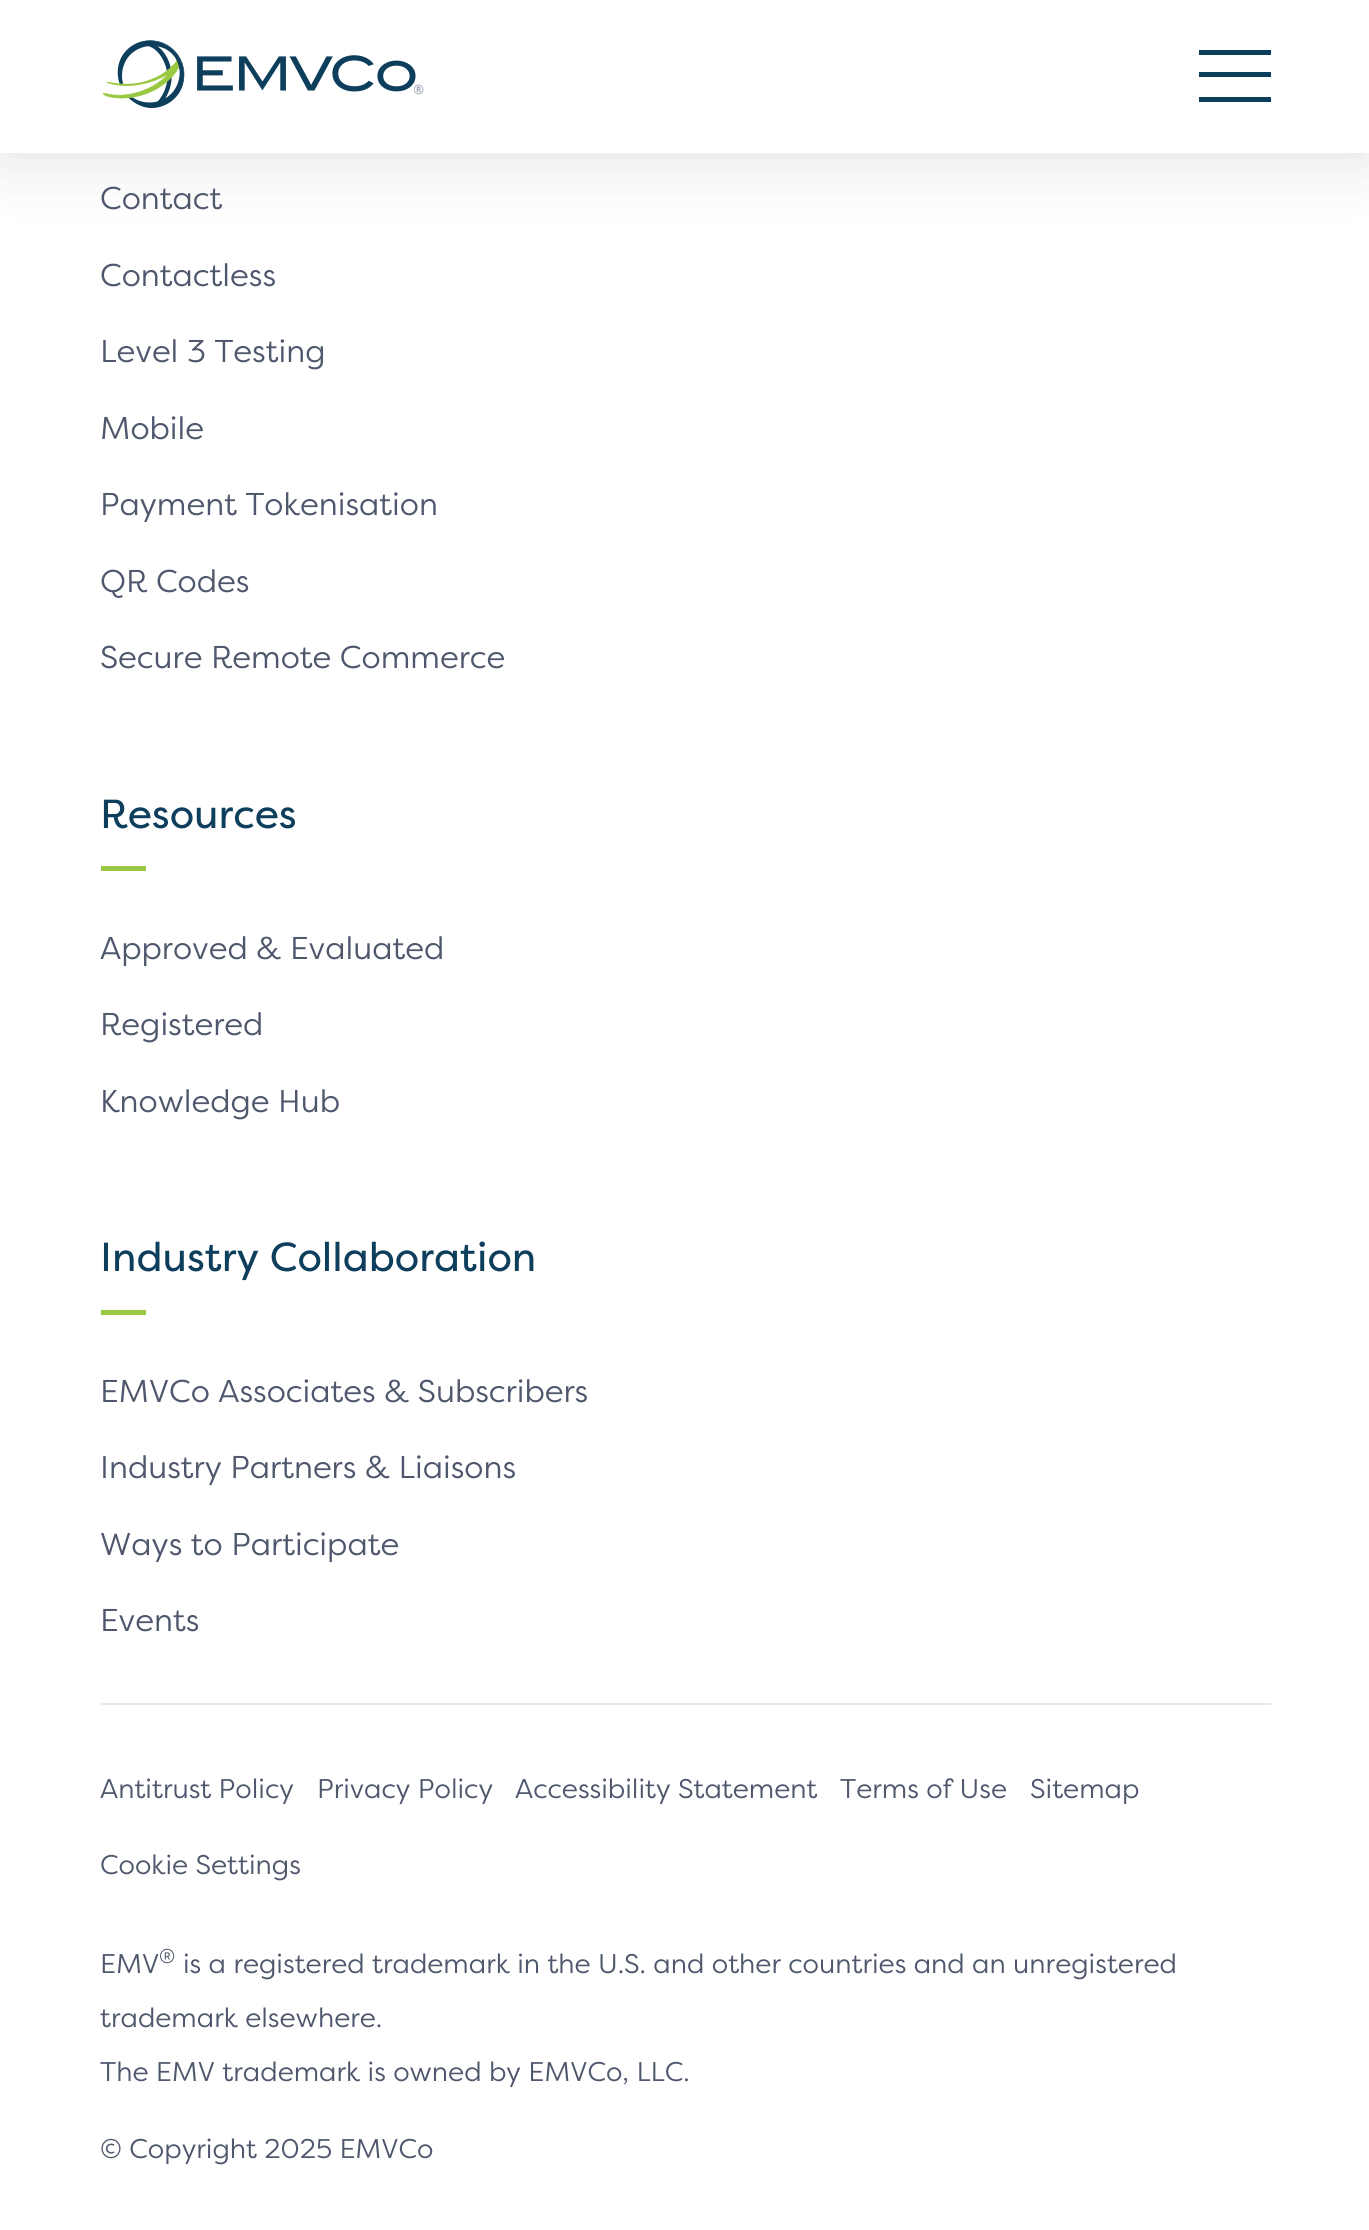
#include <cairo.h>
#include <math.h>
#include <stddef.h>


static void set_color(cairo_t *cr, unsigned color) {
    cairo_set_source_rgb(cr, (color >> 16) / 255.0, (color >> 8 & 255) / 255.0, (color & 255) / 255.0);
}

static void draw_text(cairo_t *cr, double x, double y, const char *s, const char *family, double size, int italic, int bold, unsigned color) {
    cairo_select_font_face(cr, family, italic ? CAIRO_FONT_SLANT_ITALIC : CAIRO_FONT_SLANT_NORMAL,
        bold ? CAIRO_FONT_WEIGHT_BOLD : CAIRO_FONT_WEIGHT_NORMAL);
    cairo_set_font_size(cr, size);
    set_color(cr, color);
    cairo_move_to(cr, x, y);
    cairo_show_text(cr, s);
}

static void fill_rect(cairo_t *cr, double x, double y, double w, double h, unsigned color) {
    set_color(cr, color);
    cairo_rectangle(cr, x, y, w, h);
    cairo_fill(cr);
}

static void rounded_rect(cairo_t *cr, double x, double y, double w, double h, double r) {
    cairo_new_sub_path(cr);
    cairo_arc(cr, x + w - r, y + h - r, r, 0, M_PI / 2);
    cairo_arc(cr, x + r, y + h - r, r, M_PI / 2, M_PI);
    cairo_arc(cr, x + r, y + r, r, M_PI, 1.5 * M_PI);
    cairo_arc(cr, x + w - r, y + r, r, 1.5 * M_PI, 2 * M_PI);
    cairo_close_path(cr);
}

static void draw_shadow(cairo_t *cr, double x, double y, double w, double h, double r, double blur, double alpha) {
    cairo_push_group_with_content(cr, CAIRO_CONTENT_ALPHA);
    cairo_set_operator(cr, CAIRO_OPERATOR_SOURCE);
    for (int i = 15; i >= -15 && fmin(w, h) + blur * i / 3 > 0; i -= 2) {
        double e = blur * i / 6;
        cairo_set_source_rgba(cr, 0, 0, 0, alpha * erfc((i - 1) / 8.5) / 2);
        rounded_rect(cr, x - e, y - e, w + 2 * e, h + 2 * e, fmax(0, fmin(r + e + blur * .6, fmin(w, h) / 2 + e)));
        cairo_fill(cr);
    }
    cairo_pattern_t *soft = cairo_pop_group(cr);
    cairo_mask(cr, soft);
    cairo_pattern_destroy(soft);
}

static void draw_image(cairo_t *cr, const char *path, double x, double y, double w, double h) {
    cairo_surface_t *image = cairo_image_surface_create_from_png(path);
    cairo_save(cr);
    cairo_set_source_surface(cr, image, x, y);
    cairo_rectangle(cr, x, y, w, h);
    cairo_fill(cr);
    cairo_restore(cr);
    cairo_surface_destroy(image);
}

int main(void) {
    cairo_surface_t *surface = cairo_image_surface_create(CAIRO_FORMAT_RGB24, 1369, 2230);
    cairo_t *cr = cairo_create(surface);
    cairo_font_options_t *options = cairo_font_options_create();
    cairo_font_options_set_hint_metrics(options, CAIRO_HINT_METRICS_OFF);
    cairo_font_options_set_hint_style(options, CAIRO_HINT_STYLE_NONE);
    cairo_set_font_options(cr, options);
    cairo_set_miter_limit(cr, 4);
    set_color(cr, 0xFFFFFF);
    cairo_paint(cr);
    set_color(cr, 0x1F1D21);
    draw_shadow(cr, 0, 0, 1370, 153, 0, 37, 0.15);
    fill_rect(cr, 0, 0, 1369, 153, 0xFFFFFF);
    draw_image(cr, "assets/img1.png", 102, 40, 322, 68);
    fill_rect(cr, 1199, 50, 72, 5, 0x0D3E5C);
    fill_rect(cr, 1199, 72, 72, 5, 0x0D3E5C);
    fill_rect(cr, 1199, 97, 72, 5, 0x0D3E5C);
    draw_text(cr, 100, 209, "Contact", "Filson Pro", 31.5, 0, 0, 0x4F576D);
    draw_text(cr, 100, 286, "Contactless", "Filson Pro", 31.5, 0, 0, 0x4F576D);
    draw_text(cr, 100, 362, "Level 3 Testing", "Filson Pro", 31.5, 0, 0, 0x4F576D);
    draw_text(cr, 100, 439, "Mobile", "Filson Pro", 31.5, 0, 0, 0x4F576D);
    draw_text(cr, 100, 515, "Payment Tokenisation", "Filson Pro", 31.5, 0, 0, 0x4F576D);
    draw_text(cr, 100, 592, "QR Codes", "Filson Pro", 31.5, 0, 0, 0x4F576D);
    draw_text(cr, 100, 668, "Secure Remote Commerce", "Filson Pro", 31.5, 0, 0, 0x4F576D);
    draw_text(cr, 100, 828, "Resources", "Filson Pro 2", 40.5, 0, 0, 0x0D3E5C);
    fill_rect(cr, 101, 866, 45, 5, 0x9BC842);
    draw_text(cr, 100, 959, "Approved & Evaluated", "Filson Pro", 31.5, 0, 0, 0x4F576D);
    draw_text(cr, 100, 1035, "Registered", "Filson Pro", 31.5, 0, 0, 0x4F576D);
    draw_text(cr, 100, 1112, "Knowledge Hub", "Filson Pro", 31.5, 0, 0, 0x4F576D);
    draw_text(cr, 100, 1271, "Industry Collaboration", "Filson Pro 2", 40.5, 0, 0, 0x0D3E5C);
    fill_rect(cr, 101, 1310, 45, 5, 0x9BC842);
    draw_text(cr, 100, 1402, "EMVCo Associates & Subscribers", "Filson Pro", 31.5, 0, 0, 0x4F576D);
    draw_text(cr, 100, 1478, "Industry Partners & Liaisons", "Filson Pro", 31.5, 0, 0, 0x4F576D);
    draw_text(cr, 100, 1555, "Ways to Participate", "Filson Pro", 31.5, 0, 0, 0x4F576D);
    draw_text(cr, 100, 1631, "Events", "Filson Pro", 31.5, 0, 0, 0x4F576D);
    fill_rect(cr, 101, 1703, 1170, 2, 0xE7E9EA);
    draw_text(cr, 100, 1798, "Antitrust Policy", "Filson Pro", 27, 0, 0, 0x4F576D);
    draw_text(cr, 317, 1798, "Privacy Policy", "Filson Pro", 27, 0, 0, 0x4F576D);
    draw_text(cr, 515, 1798, "Accessibility Statement", "Filson Pro", 27, 0, 0, 0x4F576D);
    draw_text(cr, 840, 1798, "Terms of Use", "Filson Pro", 27, 0, 0, 0x4F576D);
    draw_text(cr, 1030, 1798, "Sitemap", "Filson Pro", 27, 0, 0, 0x4F576D);
    draw_text(cr, 100, 1874, "Cookie Settings", "Filson Pro", 27, 0, 0, 0x4F576D);
    draw_text(cr, 100, 1973, "EMV", "Filson Pro", 27, 0, 0, 0x4F576D);
    draw_text(cr, 159, 1963, "®", "Filson Pro", 20, 0, 0, 0x4F576D);
    draw_text(cr, 183, 1973, "is a registered trademark in the U.S. and other countries and an unregistered", "Filson Pro", 27, 0, 0, 0x4F576D);
    draw_text(cr, 100, 2027, "trademark elsewhere.", "Filson Pro", 27, 0, 0, 0x4F576D);
    draw_text(cr, 100, 2081, "The EMV trademark is owned by EMVCo, LLC.", "Filson Pro", 27, 0, 0, 0x4F576D);
    draw_text(cr, 100, 2158, "© Copyright 2025 EMVCo", "Filson Pro", 27, 0, 0, 0x4F576D);
    cairo_surface_write_to_png(surface, "output.png");
    cairo_font_options_destroy(options);
    cairo_destroy(cr);
    cairo_surface_destroy(surface);
    return 0;
}
